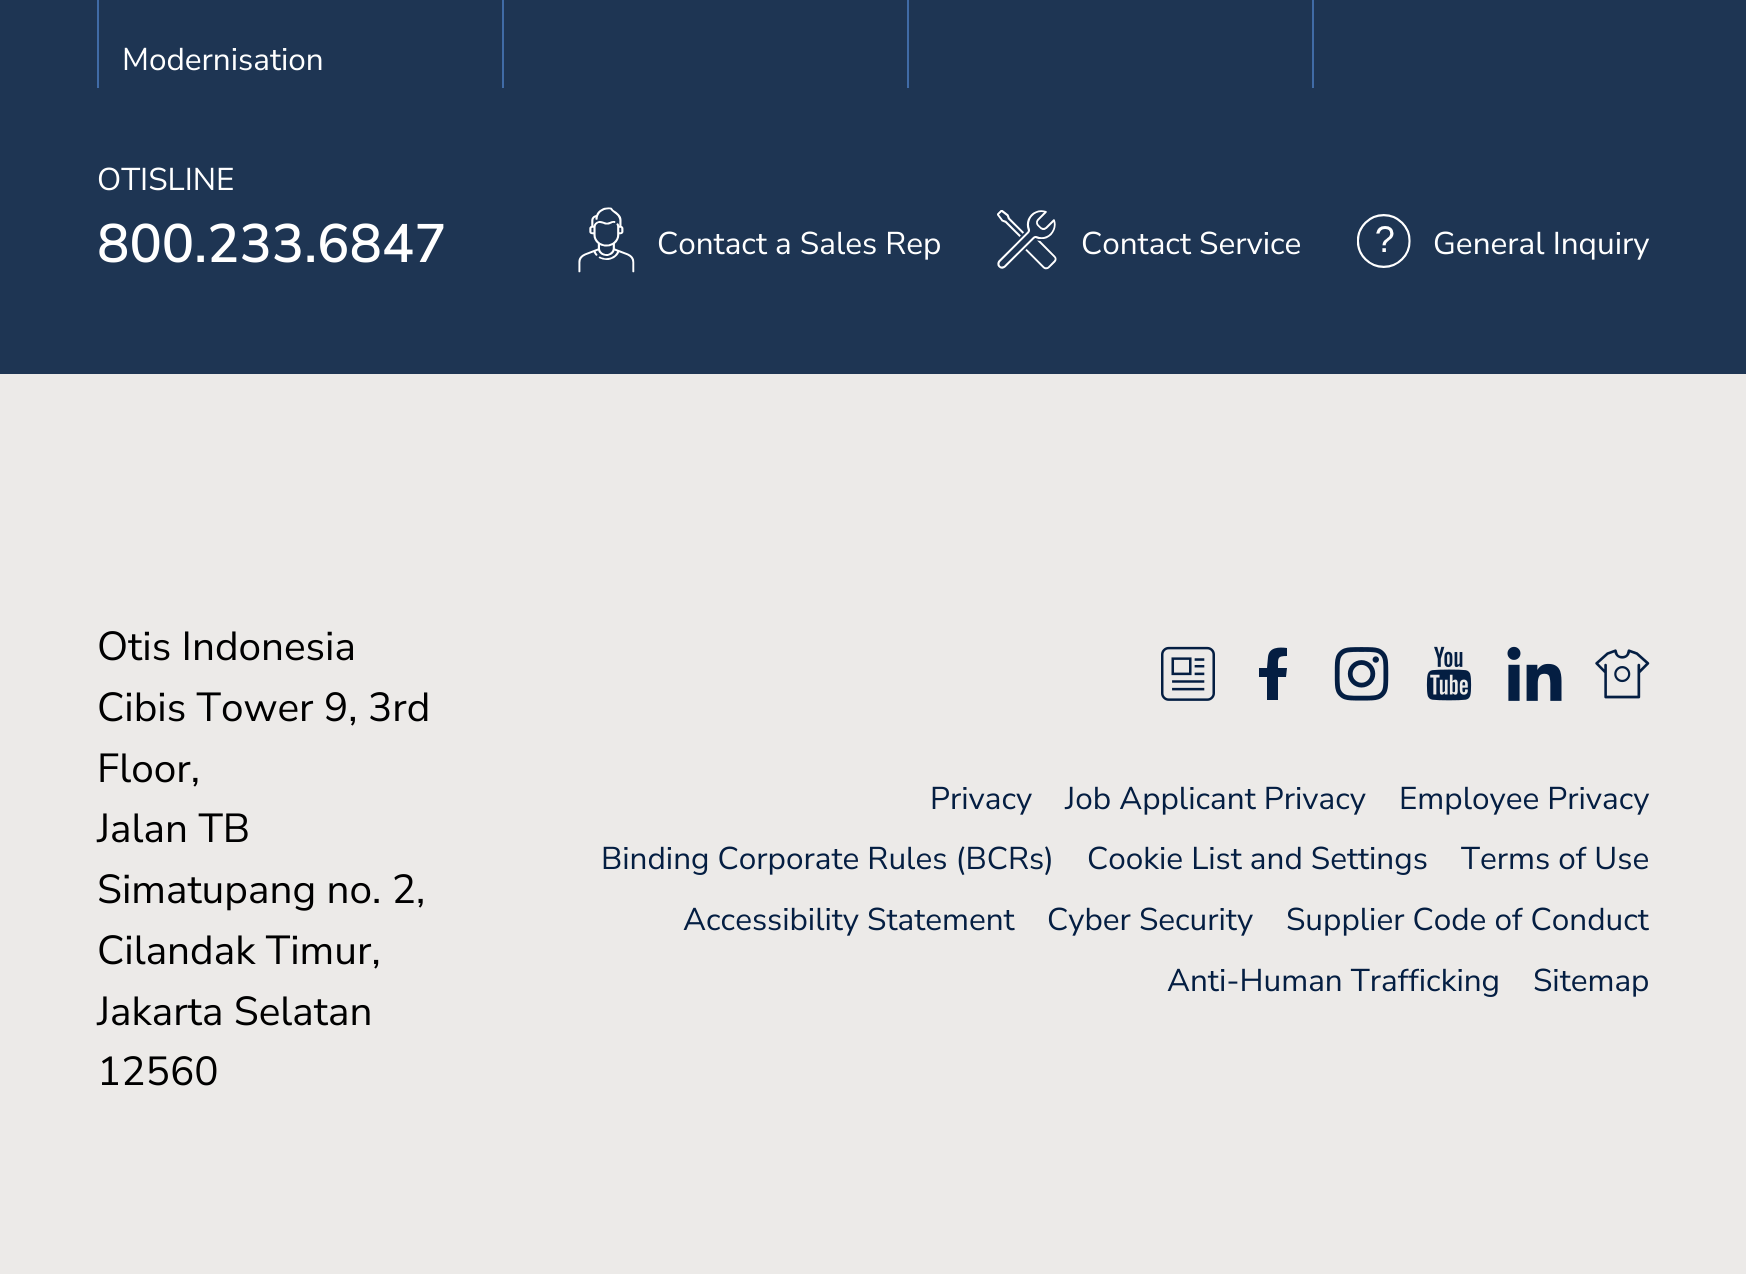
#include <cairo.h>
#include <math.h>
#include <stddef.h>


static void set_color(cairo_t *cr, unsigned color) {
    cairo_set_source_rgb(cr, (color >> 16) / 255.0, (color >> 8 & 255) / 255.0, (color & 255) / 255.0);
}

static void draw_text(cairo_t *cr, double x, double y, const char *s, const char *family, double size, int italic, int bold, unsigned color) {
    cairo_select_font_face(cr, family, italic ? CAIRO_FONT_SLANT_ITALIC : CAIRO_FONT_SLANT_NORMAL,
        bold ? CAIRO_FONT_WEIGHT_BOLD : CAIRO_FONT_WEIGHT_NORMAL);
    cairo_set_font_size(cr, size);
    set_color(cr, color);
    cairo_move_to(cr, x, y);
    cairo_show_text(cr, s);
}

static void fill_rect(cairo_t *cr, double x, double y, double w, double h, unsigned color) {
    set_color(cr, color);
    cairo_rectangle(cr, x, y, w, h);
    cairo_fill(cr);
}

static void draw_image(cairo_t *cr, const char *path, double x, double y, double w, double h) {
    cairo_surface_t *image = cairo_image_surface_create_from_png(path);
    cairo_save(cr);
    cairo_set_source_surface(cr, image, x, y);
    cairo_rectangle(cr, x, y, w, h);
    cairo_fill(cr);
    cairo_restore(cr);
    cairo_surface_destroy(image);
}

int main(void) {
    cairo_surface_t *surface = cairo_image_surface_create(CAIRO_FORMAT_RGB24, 1746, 1274);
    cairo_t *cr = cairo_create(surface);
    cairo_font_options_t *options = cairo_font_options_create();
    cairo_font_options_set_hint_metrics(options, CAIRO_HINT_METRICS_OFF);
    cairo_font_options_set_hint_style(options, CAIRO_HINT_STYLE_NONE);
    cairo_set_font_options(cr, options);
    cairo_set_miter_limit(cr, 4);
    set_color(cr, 0xECEAE8);
    cairo_paint(cr);
    fill_rect(cr, 0, 0, 1746, 374, 0x1E3553);
    fill_rect(cr, 97, 0, 2, 88, 0x406BA6);
    draw_text(cr, 122, 70, "Modernisation", "Nunito Sans", 31.5, 0, 0, 0xFFFFFF);
    fill_rect(cr, 502, 0, 2, 88, 0x406BA6);
    fill_rect(cr, 907, 0, 2, 88, 0x406BA6);
    fill_rect(cr, 1312, 0, 2, 88, 0x406BA6);
    draw_text(cr, 97, 190, "OTISLINE", "Nunito Sans", 31.5, 0, 0, 0xFFFFFF);
    draw_text(cr, 97, 262, "800.233.6847", "Nunito Sans SemiBold", 54, 0, 0, 0xFFFFFF);
    draw_image(cr, "assets/img1.png", 578, 207, 57, 66);
    draw_text(cr, 657, 254, "Contact a Sales Rep", "Nunito Sans", 31.5, 0, 0, 0xFFFFFF);
    draw_image(cr, "assets/img2.png", 997, 210, 60, 60);
    draw_text(cr, 1081, 254, "Contact Service", "Nunito Sans", 31.5, 0, 0, 0xFFFFFF);
    draw_image(cr, "assets/img3.png", 1357, 214, 54, 54);
    draw_text(cr, 1433, 254, "General Inquiry", "Nunito Sans", 31.5, 0, 0, 0xFFFFFF);
    draw_text(cr, 97, 660, "Otis Indonesia", "Nunito Sans", 40.5, 0, 0, 0x000000);
    draw_text(cr, 97, 721, "Cibis Tower 9, 3rd", "Nunito Sans", 40.5, 0, 0, 0x000000);
    draw_text(cr, 97, 782, "Floor,", "Nunito Sans", 40.5, 0, 0, 0x000000);
    draw_text(cr, 97, 842, "Jalan TB", "Nunito Sans", 40.5, 0, 0, 0x000000);
    draw_text(cr, 97, 903, "Simatupang no. 2,", "Nunito Sans", 40.5, 0, 0, 0x000000);
    draw_text(cr, 97, 964, "Cilandak Timur,", "Nunito Sans", 40.5, 0, 0, 0x000000);
    draw_text(cr, 97, 1025, "Jakarta Selatan", "Nunito Sans", 40.5, 0, 0, 0x000000);
    draw_text(cr, 97, 1085, "12560", "Nunito Sans", 40.5, 0, 0, 0x000000);
    draw_image(cr, "assets/img4.png", 1161, 646, 54, 55);
    set_color(cr, 0x041E42);
    cairo_new_path(cr);
    cairo_move_to(cr, 1286, 677);
    cairo_line_to(cr, 1287, 668);
    cairo_line_to(cr, 1278, 668);
    cairo_curve_to(cr, 1278, 658, 1277, 656, 1287, 656);
    cairo_line_to(cr, 1287, 648);
    cairo_curve_to(cr, 1279, 647, 1269, 647, 1268, 657);
    cairo_line_to(cr, 1267, 668);
    cairo_line_to(cr, 1259, 668);
    cairo_line_to(cr, 1259, 677);
    cairo_line_to(cr, 1267, 677);
    cairo_line_to(cr, 1267, 700);
    cairo_line_to(cr, 1278, 700);
    cairo_line_to(cr, 1278, 677);
    cairo_close_path(cr);
    cairo_fill(cr);
    draw_image(cr, "assets/img5.png", 1334, 647, 55, 54);
    draw_image(cr, "assets/img6.png", 1426, 646, 46, 55);
    draw_image(cr, "assets/img7.png", 1507, 646, 55, 55);
    draw_image(cr, "assets/img8.png", 1595, 649, 55, 50);
    draw_text(cr, 930, 809, "Privacy", "Nunito Sans", 31.5, 0, 0, 0x041E42);
    draw_text(cr, 1065, 809, "Job Applicant Privacy", "Nunito Sans", 31.5, 0, 0, 0x041E42);
    draw_text(cr, 1399, 809, "Employee Privacy", "Nunito Sans", 31.5, 0, 0, 0x041E42);
    draw_text(cr, 601, 869, "Binding Corporate Rules (BCRs)", "Nunito Sans", 31.5, 0, 0, 0x041E42);
    draw_text(cr, 1087, 869, "Cookie List and Settings", "Nunito Sans", 31.5, 0, 0, 0x041E42);
    draw_text(cr, 1461, 869, "Terms of Use", "Nunito Sans", 31.5, 0, 0, 0x041E42);
    draw_text(cr, 683, 930, "Accessibility Statement", "Nunito Sans", 31.5, 0, 0, 0x041E42);
    draw_text(cr, 1047, 930, "Cyber Security", "Nunito Sans", 31.5, 0, 0, 0x041E42);
    draw_text(cr, 1286, 930, "Supplier Code of Conduct", "Nunito Sans", 31.5, 0, 0, 0x041E42);
    draw_text(cr, 1167, 991, "Anti-Human Trafficking", "Nunito Sans", 31.5, 0, 0, 0x041E42);
    draw_text(cr, 1533, 991, "Sitemap", "Nunito Sans", 31.5, 0, 0, 0x041E42);
    cairo_surface_write_to_png(surface, "output.png");
    cairo_font_options_destroy(options);
    cairo_destroy(cr);
    cairo_surface_destroy(surface);
    return 0;
}
